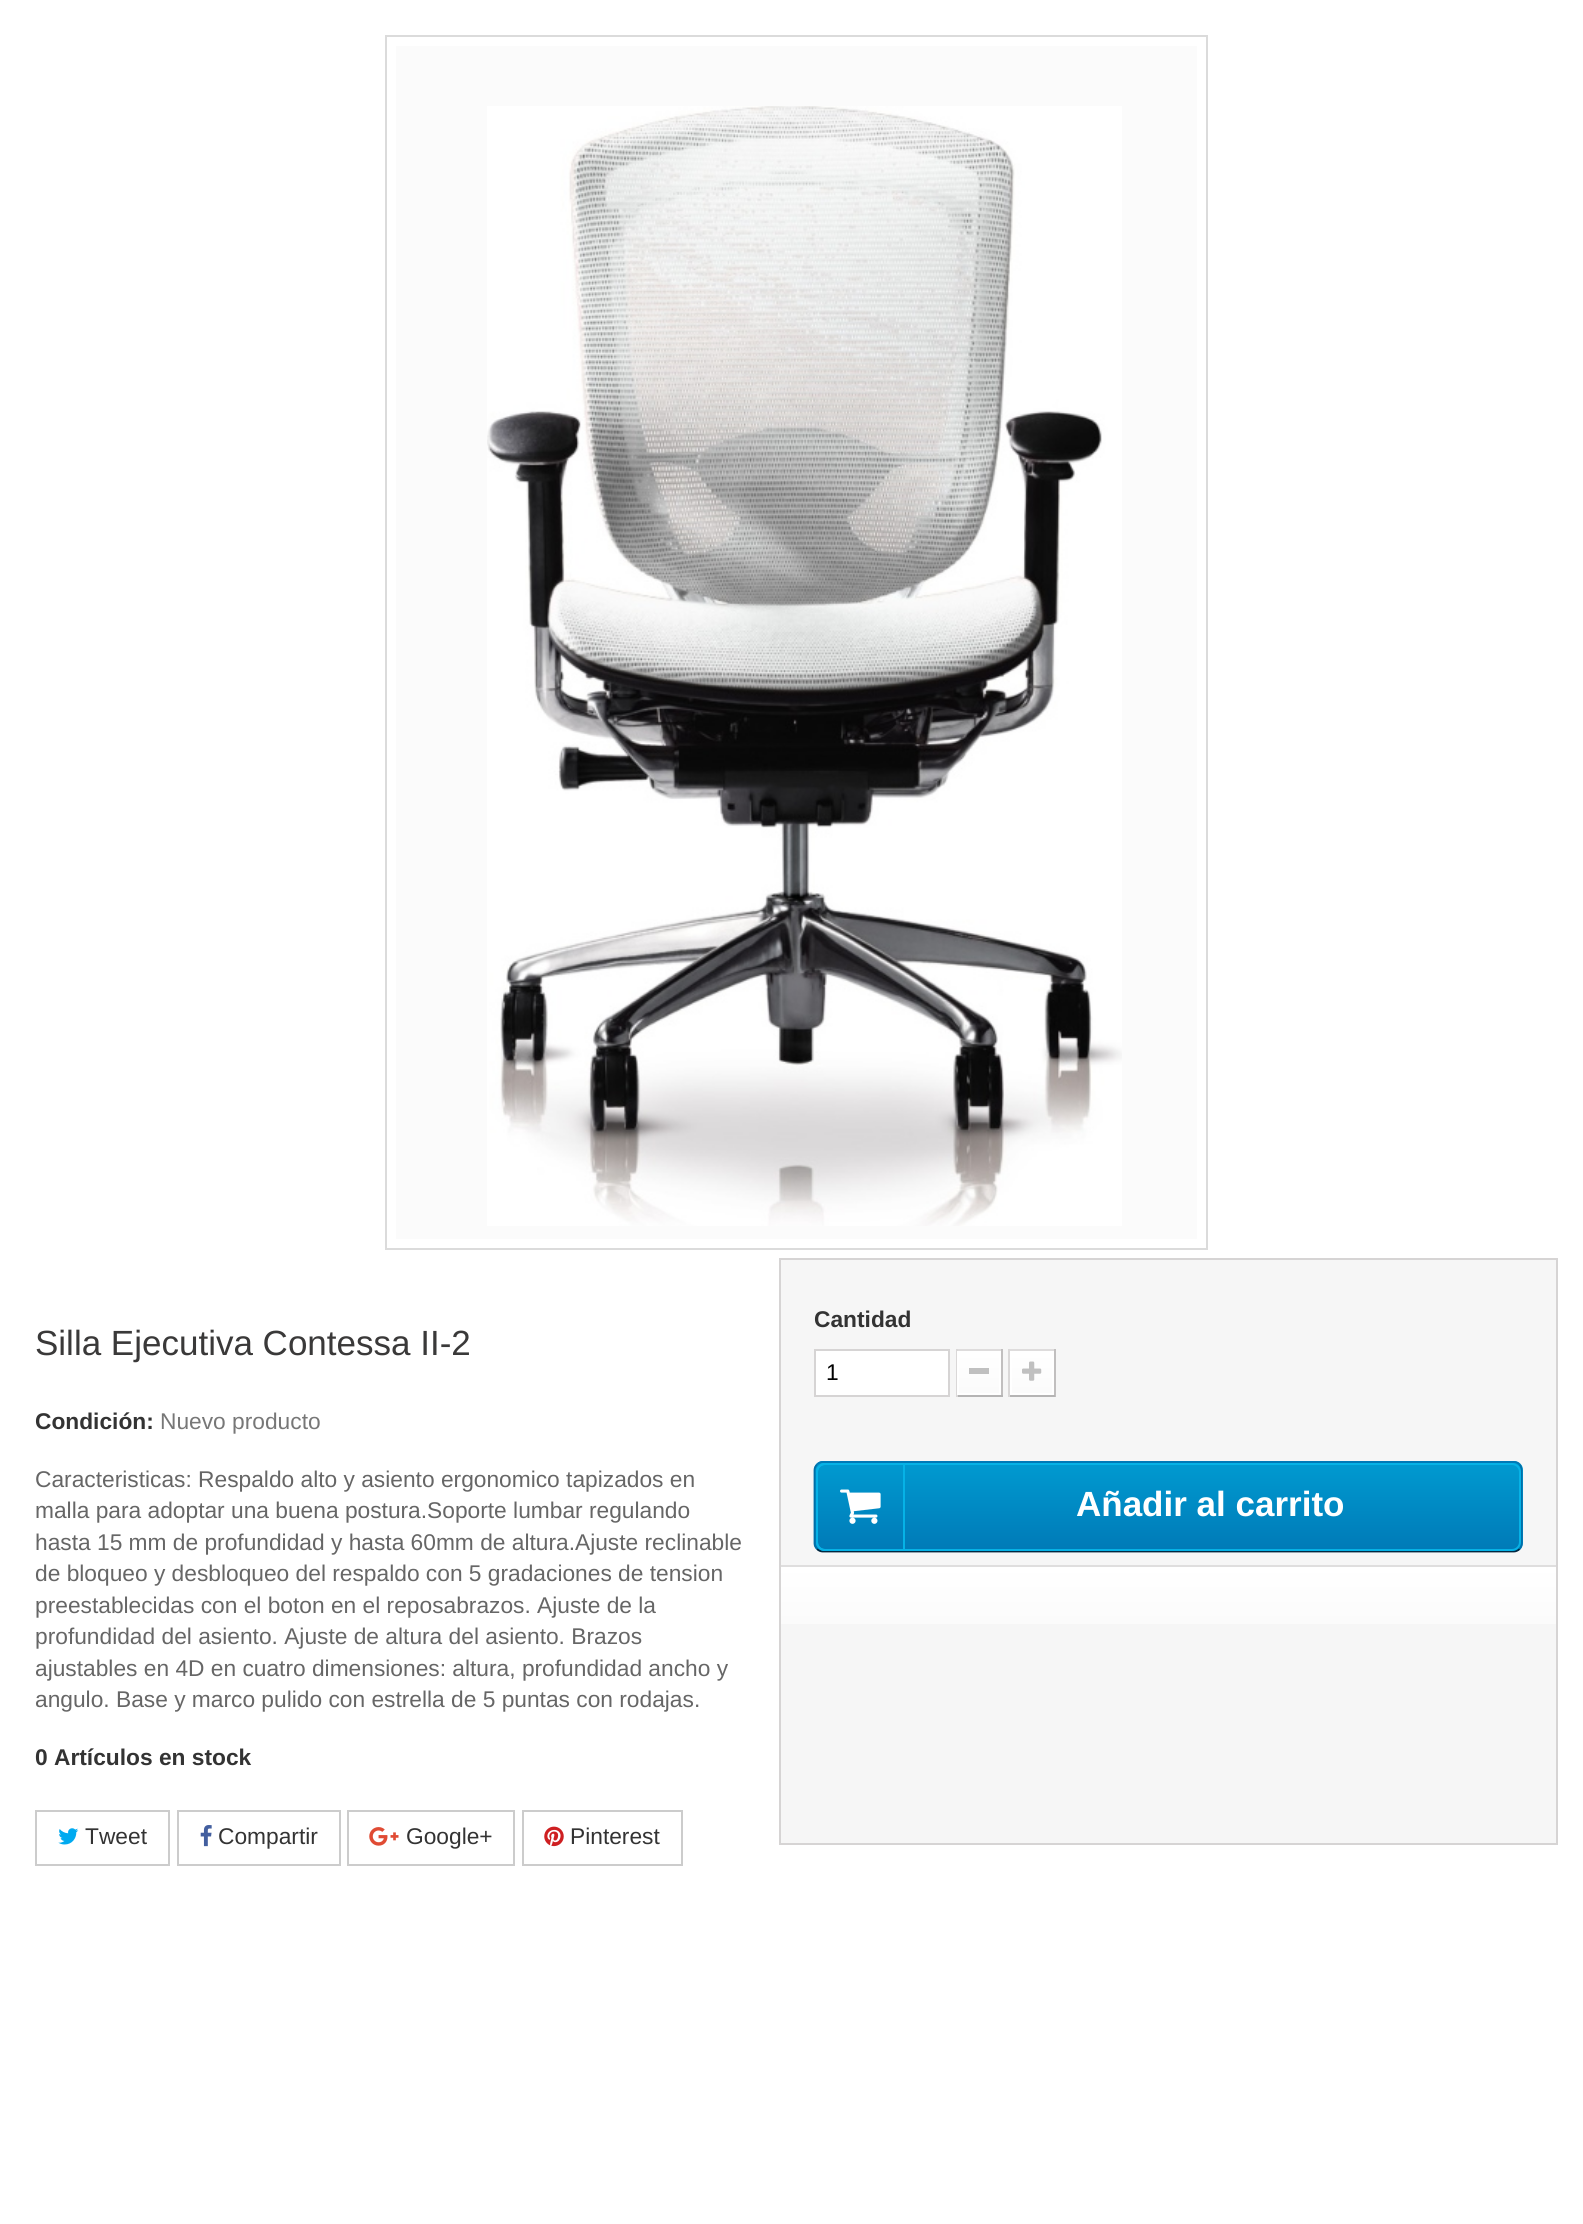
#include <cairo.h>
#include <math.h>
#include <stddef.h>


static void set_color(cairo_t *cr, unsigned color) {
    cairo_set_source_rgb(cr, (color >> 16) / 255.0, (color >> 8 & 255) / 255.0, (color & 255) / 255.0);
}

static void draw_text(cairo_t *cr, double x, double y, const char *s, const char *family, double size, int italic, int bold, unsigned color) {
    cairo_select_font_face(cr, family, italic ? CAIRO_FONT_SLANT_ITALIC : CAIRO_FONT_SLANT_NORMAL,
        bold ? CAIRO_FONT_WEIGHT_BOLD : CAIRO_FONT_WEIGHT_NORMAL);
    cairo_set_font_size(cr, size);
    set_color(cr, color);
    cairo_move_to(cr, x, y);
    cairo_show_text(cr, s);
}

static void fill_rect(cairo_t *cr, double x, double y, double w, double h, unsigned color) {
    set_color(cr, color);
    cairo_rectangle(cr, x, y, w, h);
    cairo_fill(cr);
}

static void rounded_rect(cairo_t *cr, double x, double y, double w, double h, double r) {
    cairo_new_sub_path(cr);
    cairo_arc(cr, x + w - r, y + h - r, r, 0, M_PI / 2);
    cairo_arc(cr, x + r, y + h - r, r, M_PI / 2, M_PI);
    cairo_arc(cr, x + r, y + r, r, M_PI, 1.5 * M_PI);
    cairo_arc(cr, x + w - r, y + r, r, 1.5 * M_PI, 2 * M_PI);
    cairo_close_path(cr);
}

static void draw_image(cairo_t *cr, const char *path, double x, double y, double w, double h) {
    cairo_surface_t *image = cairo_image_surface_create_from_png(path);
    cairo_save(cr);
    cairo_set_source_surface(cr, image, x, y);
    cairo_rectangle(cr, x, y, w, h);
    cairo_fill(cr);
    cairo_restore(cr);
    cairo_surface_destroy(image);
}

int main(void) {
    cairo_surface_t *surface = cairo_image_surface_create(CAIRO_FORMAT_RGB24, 1583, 2224);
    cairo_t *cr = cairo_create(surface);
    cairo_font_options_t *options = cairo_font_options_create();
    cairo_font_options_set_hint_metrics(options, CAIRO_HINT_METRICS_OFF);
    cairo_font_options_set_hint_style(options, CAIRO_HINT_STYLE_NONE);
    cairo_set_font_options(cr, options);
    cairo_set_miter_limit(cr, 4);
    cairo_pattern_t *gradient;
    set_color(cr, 0xFFFFFF);
    cairo_paint(cr);
    cairo_rectangle(cr, 386, 36, 821, 1213);
    set_color(cr, 0xDBDBDB);
    cairo_stroke(cr);
    fill_rect(cr, 396, 46, 801, 1193, 0xFBFBFB);
    draw_image(cr, "assets/img1.png", 487, 106, 635, 1120);
    draw_text(cr, 35, 1355, "Silla Ejecutiva Contessa II-2", "Liberation Sans", 35, 0, 0, 0x3A3939);
    draw_text(cr, 35, 1429, "Condición:", "Liberation Sans", 22.75, 0, 1, 0x333333);
    draw_text(cr, 160, 1429, "Nuevo producto", "Liberation Sans", 22.75, 0, 0, 0x777777);
    draw_text(cr, 35, 1487, "Caracteristicas: Respaldo alto y asiento ergonomico tapizados en", "Liberation Sans", 22.75, 0, 0, 0x666666);
    draw_text(cr, 35, 1518, "malla para adoptar una buena postura.Soporte lumbar regulando", "Liberation Sans", 22.75, 0, 0, 0x666666);
    draw_text(cr, 35, 1550, "hasta 15 mm de profundidad y hasta 60mm de altura.Ajuste reclinable", "Liberation Sans", 22.75, 0, 0, 0x666666);
    draw_text(cr, 35, 1581, "de bloqueo y desbloqueo del respaldo con 5 gradaciones de tension", "Liberation Sans", 22.75, 0, 0, 0x666666);
    draw_text(cr, 35, 1613, "preestablecidas con el boton en el reposabrazos. Ajuste de la", "Liberation Sans", 22.75, 0, 0, 0x666666);
    draw_text(cr, 35, 1644, "profundidad del asiento. Ajuste de altura del asiento. Brazos", "Liberation Sans", 22.75, 0, 0, 0x666666);
    draw_text(cr, 35, 1676, "ajustables en 4D en cuatro dimensiones: altura, profundidad ancho y", "Liberation Sans", 22.75, 0, 0, 0x666666);
    draw_text(cr, 35, 1707, "angulo. Base y marco pulido con estrella de 5 puntas con rodajas.", "Liberation Sans", 22.75, 0, 0, 0x666666);
    draw_text(cr, 35, 1765, "0 Artículos en stock", "Liberation Sans", 22.75, 0, 1, 0x333333);
    cairo_rectangle(cr, 36, 1811, 133, 54);
    set_color(cr, 0xCCCCCC);
    cairo_stroke(cr);
    draw_image(cr, "assets/img2.png", 58, 1828, 21, 17);
    draw_text(cr, 85, 1844, "Tweet", "Liberation Sans", 22.75, 0, 0, 0x333333);
    cairo_rectangle(cr, 178, 1811, 162, 54);
    set_color(cr, 0xCCCCCC);
    cairo_stroke(cr);
    draw_image(cr, "assets/img3.png", 200, 1825, 12, 22);
    draw_text(cr, 218, 1844, "Compartir", "Liberation Sans", 22.75, 0, 0, 0x333333);
    cairo_rectangle(cr, 348, 1811, 166, 54);
    set_color(cr, 0xCCCCCC);
    cairo_stroke(cr);
    draw_image(cr, "assets/img4.png", 369, 1827, 30, 19);
    draw_text(cr, 406, 1844, "Google+", "Liberation Sans", 22.75, 0, 0, 0x333333);
    cairo_rectangle(cr, 523, 1811, 159, 54);
    set_color(cr, 0xCCCCCC);
    cairo_stroke(cr);
    draw_image(cr, "assets/img5.png", 544, 1826, 20, 21);
    draw_text(cr, 570, 1844, "Pinterest", "Liberation Sans", 22.75, 0, 0, 0x333333);
    set_color(cr, 0xF6F6F6);
    cairo_rectangle(cr, 780, 1259, 777, 585);
    cairo_fill_preserve(cr);
    set_color(cr, 0xD6D4D4);
    cairo_stroke(cr);
    draw_text(cr, 814, 1327, "Cantidad", "Liberation Sans", 22.75, 0, 1, 0x333333);
    set_color(cr, 0xFFFFFF);
    cairo_rectangle(cr, 815, 1350, 134, 46);
    cairo_fill_preserve(cr);
    set_color(cr, 0xD6D4D4);
    cairo_stroke(cr);
    draw_text(cr, 826, 1380, "1", "Liberation Sans", 22.75, 0, 0, 0x000000);
    fill_rect(cr, 956, 1349, 47, 2, 0xDEDCDC);
    fill_rect(cr, 1001, 1349, 2, 48, 0xC1BFBF);
    fill_rect(cr, 956, 1395, 47, 2, 0xB5B4B4);
    fill_rect(cr, 956, 1349, 2, 48, 0xDAD8D8);
    gradient = cairo_pattern_create_linear(979, 1353, 979, 1393);
    cairo_pattern_add_color_stop_rgba(gradient, 0, 1, 1, 1, 1);
    cairo_pattern_add_color_stop_rgba(gradient, 1, 0.984, 0.984, 0.984, 1);
    cairo_set_source(cr, gradient);
    cairo_pattern_destroy(gradient);
    cairo_rectangle(cr, 959, 1353, 40, 40);
    cairo_fill(cr);
    cairo_rectangle(cr, 958, 1352, 42, 42);
    set_color(cr, 0xFFFFFF);
    cairo_stroke(cr);
    fill_rect(cr, 969, 1368, 20, 6, 0xC0C0C0);
    fill_rect(cr, 1008, 1349, 47, 2, 0xDEDCDC);
    fill_rect(cr, 1054, 1349, 2, 48, 0xC1BFBF);
    fill_rect(cr, 1008, 1395, 47, 2, 0xB5B4B4);
    fill_rect(cr, 1008, 1349, 2, 48, 0xDAD8D8);
    gradient = cairo_pattern_create_linear(1032, 1353, 1032, 1393);
    cairo_pattern_add_color_stop_rgba(gradient, 0, 1, 1, 1, 1);
    cairo_pattern_add_color_stop_rgba(gradient, 1, 0.984, 0.984, 0.984, 1);
    cairo_set_source(cr, gradient);
    cairo_pattern_destroy(gradient);
    cairo_rectangle(cr, 1012, 1353, 40, 40);
    cairo_fill(cr);
    cairo_rectangle(cr, 1011, 1352, 42, 42);
    set_color(cr, 0xFFFFFF);
    cairo_stroke(cr);
    draw_image(cr, "assets/img6.png", 1022, 1361, 20, 20);
    cairo_save(cr);
    rounded_rect(cr, 814, 1461, 709, 91, 9);
    cairo_clip(cr);
    gradient = cairo_pattern_create_linear(1168, 1376, 1168, 1463);
    cairo_pattern_add_color_stop_rgba(gradient, 0, 0, 0.604, 0.816, 1);
    cairo_pattern_add_color_stop_rgba(gradient, 1, 0, 0.478, 0.718, 1);
    cairo_set_source(cr, gradient);
    cairo_pattern_destroy(gradient);
    cairo_rectangle(cr, 814, 1461, 709, 2);
    cairo_fill(cr);
    gradient = cairo_pattern_create_linear(1168, 1463, 1168, 1551);
    cairo_pattern_add_color_stop_rgba(gradient, 0, 0, 0.604, 0.816, 1);
    cairo_pattern_add_color_stop_rgba(gradient, 1, 0, 0.478, 0.718, 1);
    cairo_set_source(cr, gradient);
    cairo_pattern_destroy(gradient);
    cairo_rectangle(cr, 814, 1463, 709, 88);
    cairo_fill(cr);
    cairo_restore(cr);
    cairo_new_path(cr);
    cairo_move_to(cr, 817, 1464.5);
    cairo_curve_to(cr, 818.5, 1463, 820.5, 1462, 822.5, 1462);
    cairo_line_to(cr, 1514, 1462);
    cairo_curve_to(cr, 1516, 1462, 1518, 1463, 1519.5, 1464.5);
    set_color(cr, 0x0079B6);
    cairo_set_line_width(cr, 1.8);
    cairo_stroke(cr);
    cairo_new_path(cr);
    cairo_move_to(cr, 1519.5, 1464.5);
    cairo_curve_to(cr, 1521, 1466, 1521.5, 1468, 1521.5, 1470);
    cairo_line_to(cr, 1521.5, 1543.5);
    cairo_curve_to(cr, 1521.5, 1545.5, 1521, 1547.5, 1519.5, 1549);
    set_color(cr, 0x006FA8);
    cairo_stroke(cr);
    cairo_new_path(cr);
    cairo_move_to(cr, 1519.5, 1549);
    cairo_curve_to(cr, 1518, 1550.5, 1516, 1551.5, 1514, 1551.5);
    cairo_line_to(cr, 822.5, 1551.5);
    cairo_curve_to(cr, 820.5, 1551.5, 818.5, 1550.5, 817, 1549);
    set_color(cr, 0x012740);
    cairo_stroke(cr);
    cairo_new_path(cr);
    cairo_move_to(cr, 817, 1549);
    cairo_curve_to(cr, 815.5, 1547.5, 814.5, 1545.5, 814.5, 1543.5);
    cairo_line_to(cr, 814.5, 1470);
    cairo_curve_to(cr, 814.5, 1468, 815.5, 1466, 817, 1464.5);
    set_color(cr, 0x006FA8);
    cairo_stroke(cr);
    rounded_rect(cr, 817, 1464, 703, 86, 8);
    set_color(cr, 0x06B2E6);
    cairo_set_line_width(cr, 2);
    cairo_stroke(cr);
    cairo_new_path(cr);
    cairo_move_to(cr, 825, 1464);
    cairo_line_to(cr, 904, 1464);
    cairo_line_to(cr, 904, 1550);
    cairo_line_to(cr, 825, 1550);
    cairo_curve_to(cr, 820.5, 1550, 817, 1546.5, 817, 1542);
    cairo_line_to(cr, 817, 1472);
    cairo_curve_to(cr, 817, 1467.5, 820.5, 1464, 825, 1464);
    cairo_close_path(cr);
    cairo_stroke(cr);
    draw_image(cr, "assets/img7.png", 840, 1489, 41, 35);
    draw_text(cr, 1076, 1516, "Añadir al carrito", "Liberation Sans", 35, 0, 1, 0xFFFFFF);
    gradient = cairo_pattern_create_linear(1168, 1566, 1168, 1624);
    cairo_pattern_add_color_stop_rgba(gradient, 0, 1, 1, 1, 1);
    cairo_pattern_add_color_stop_rgba(gradient, 1, 0.984, 0.984, 0.984, 1);
    cairo_set_source(cr, gradient);
    cairo_pattern_destroy(gradient);
    cairo_rectangle(cr, 781, 1567, 775, 57);
    cairo_fill(cr);
    fill_rect(cr, 781, 1565, 775, 2, 0xDFDEDE);
    cairo_surface_write_to_png(surface, "output.png");
    cairo_font_options_destroy(options);
    cairo_destroy(cr);
    cairo_surface_destroy(surface);
    return 0;
}
